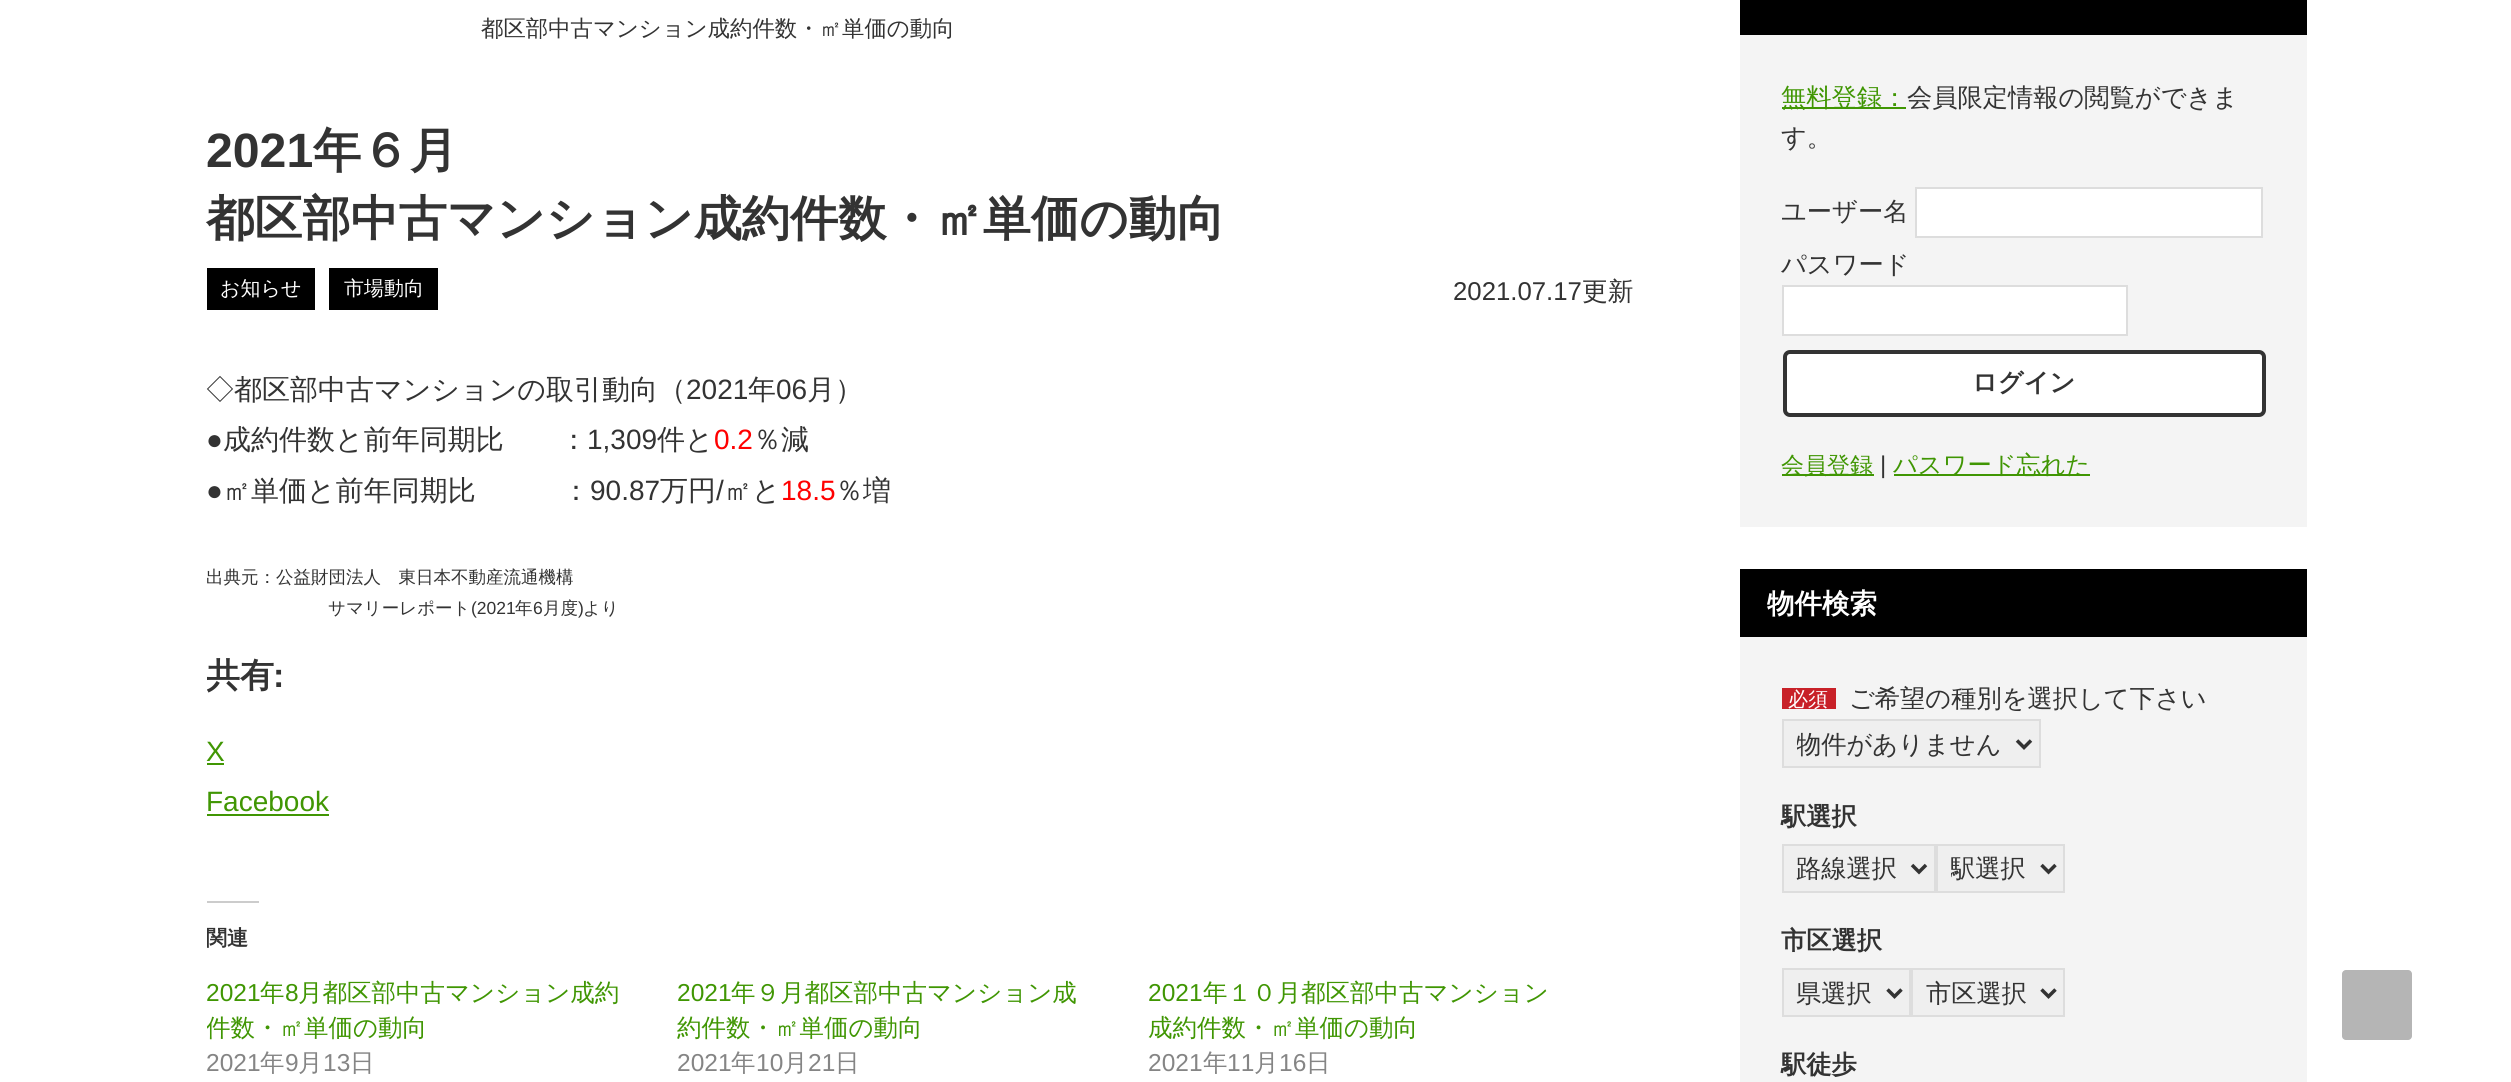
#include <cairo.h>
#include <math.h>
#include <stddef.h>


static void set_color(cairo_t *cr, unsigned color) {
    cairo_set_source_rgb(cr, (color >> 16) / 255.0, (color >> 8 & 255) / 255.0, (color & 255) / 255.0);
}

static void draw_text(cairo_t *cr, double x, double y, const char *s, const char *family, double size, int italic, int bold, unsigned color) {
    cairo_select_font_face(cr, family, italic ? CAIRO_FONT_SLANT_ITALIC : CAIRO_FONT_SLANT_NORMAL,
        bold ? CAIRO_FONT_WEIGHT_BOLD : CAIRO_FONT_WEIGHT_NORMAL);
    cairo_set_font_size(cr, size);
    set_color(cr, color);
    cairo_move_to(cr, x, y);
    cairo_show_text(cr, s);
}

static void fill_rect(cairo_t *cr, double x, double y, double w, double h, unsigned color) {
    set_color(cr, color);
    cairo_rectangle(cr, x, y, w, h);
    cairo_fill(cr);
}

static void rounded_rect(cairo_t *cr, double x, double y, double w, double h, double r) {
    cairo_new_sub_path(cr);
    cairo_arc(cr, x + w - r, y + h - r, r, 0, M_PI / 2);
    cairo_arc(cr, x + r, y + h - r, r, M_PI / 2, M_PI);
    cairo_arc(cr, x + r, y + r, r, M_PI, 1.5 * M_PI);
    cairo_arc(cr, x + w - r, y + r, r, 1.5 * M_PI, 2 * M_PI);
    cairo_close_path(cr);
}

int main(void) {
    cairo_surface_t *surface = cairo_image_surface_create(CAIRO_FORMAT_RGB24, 2511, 1082);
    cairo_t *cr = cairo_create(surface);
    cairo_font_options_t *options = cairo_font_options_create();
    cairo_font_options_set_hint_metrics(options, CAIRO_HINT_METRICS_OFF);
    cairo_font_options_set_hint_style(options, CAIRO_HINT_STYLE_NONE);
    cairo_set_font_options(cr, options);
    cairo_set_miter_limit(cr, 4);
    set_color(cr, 0xFFFFFF);
    cairo_paint(cr);
    draw_text(cr, 481, 36, "都区部中古マンション成約件数・㎡単価の動向", "WenQuanYi Zen Hei Medium", 22.4, 0, 0, 0x333333);
    draw_text(cr, 206, 167, "2021", "Liberation Sans", 48.2, 0, 1, 0x333333);
    draw_text(cr, 313, 167, "年６月", "WenQuanYi Zen Hei", 48.2, 0, 1, 0x333333);
    draw_text(cr, 206, 235, "都区部中古マンション成約件数・㎡単価の動向", "WenQuanYi Zen Hei", 48.2, 0, 1, 0x333333);
    fill_rect(cr, 207, 268, 108, 42, 0x000000);
    draw_text(cr, 220, 295, "お知らせ", "WenQuanYi Zen Hei Medium", 20, 0, 0, 0xFFFFFF);
    fill_rect(cr, 329, 268, 109, 42, 0x000000);
    draw_text(cr, 344, 295, "市場動向", "WenQuanYi Zen Hei Medium", 20, 0, 0, 0xFFFFFF);
    draw_text(cr, 1453, 300, "2021.07.17", "Liberation Sans", 25.75, 0, 0, 0x333333);
    draw_text(cr, 1582, 300, "更新", "WenQuanYi Zen Hei Medium", 25.75, 0, 0, 0x333333);
    draw_text(cr, 206, 399, "◇都区部中古マンションの取引動向（", "WenQuanYi Zen Hei Medium", 28, 0, 0, 0x333333);
    draw_text(cr, 686, 399, "2021", "Liberation Sans", 28, 0, 0, 0x333333);
    draw_text(cr, 748, 399, "年", "WenQuanYi Zen Hei Medium", 28, 0, 0, 0x333333);
    draw_text(cr, 776, 399, "06", "Liberation Sans", 28, 0, 0, 0x333333);
    draw_text(cr, 807, 399, "月）", "WenQuanYi Zen Hei Medium", 28, 0, 0, 0x333333);
    draw_text(cr, 206, 449, "●", "Liberation Sans", 28, 0, 0, 0x333333);
    draw_text(cr, 223, 449, "成約件数と前年同期比　　：", "WenQuanYi Zen Hei Medium", 28, 0, 0, 0x333333);
    draw_text(cr, 587, 449, "1,309", "Liberation Sans", 28, 0, 0, 0x333333);
    draw_text(cr, 657, 449, "件と", "WenQuanYi Zen Hei Medium", 28, 0, 0, 0x333333);
    draw_text(cr, 714, 449, "0.2", "Liberation Sans", 28, 0, 0, 0xFF0000);
    draw_text(cr, 753, 449, "％減", "WenQuanYi Zen Hei Medium", 28, 0, 0, 0x333333);
    draw_text(cr, 206, 500, "●", "Liberation Sans", 28, 0, 0, 0x333333);
    draw_text(cr, 223, 500, "㎡単価と前年同期比", "WenQuanYi Zen Hei Medium", 28, 0, 0, 0x333333);
    draw_text(cr, 562, 500, "：", "WenQuanYi Zen Hei Medium", 28, 0, 0, 0x333333);
    draw_text(cr, 590, 500, "90.87", "Liberation Sans", 28, 0, 0, 0x333333);
    draw_text(cr, 660, 500, "万円", "WenQuanYi Zen Hei Medium", 28, 0, 0, 0x333333);
    draw_text(cr, 716, 500, "/", "Liberation Sans", 28, 0, 0, 0x333333);
    draw_text(cr, 724, 500, "㎡と", "WenQuanYi Zen Hei Medium", 28, 0, 0, 0x333333);
    draw_text(cr, 781, 500, "18.5", "Liberation Sans", 28, 0, 0, 0xFF0000);
    draw_text(cr, 835, 500, "％増", "WenQuanYi Zen Hei Medium", 28, 0, 0, 0x333333);
    cairo_save(cr);
    cairo_rectangle(cr, 207, 0, 1428, 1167);
    cairo_clip(cr);
    draw_text(cr, 206, 583, "出典元：公益財団法人　東日本不動産流通機構", "WenQuanYi Zen Hei Medium", 17.5, 0, 0, 0x333333);
    cairo_restore(cr);
    draw_text(cr, 328, 614, "サマリーレポート", "WenQuanYi Zen Hei Medium", 17.5, 0, 0, 0x333333);
    draw_text(cr, 471, 614, "(2021", "Liberation Sans", 17.5, 0, 0, 0x333333);
    draw_text(cr, 515, 614, "年", "WenQuanYi Zen Hei Medium", 17.5, 0, 0, 0x333333);
    draw_text(cr, 533, 614, "6", "Liberation Sans", 17.5, 0, 0, 0x333333);
    draw_text(cr, 543, 614, "月度", "WenQuanYi Zen Hei Medium", 17.5, 0, 0, 0x333333);
    draw_text(cr, 578, 614, ")", "Liberation Sans", 17.5, 0, 0, 0x333333);
    draw_text(cr, 583, 614, "より", "WenQuanYi Zen Hei Medium", 17.5, 0, 0, 0x333333);
    cairo_save(cr);
    cairo_rectangle(cr, 207, 0, 1428, 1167);
    cairo_clip(cr);
    draw_text(cr, 206, 687, "共有", "WenQuanYi Zen Hei", 34, 0, 1, 0x333333);
    cairo_restore(cr);
    draw_text(cr, 273, 687, ":", "Liberation Sans", 34, 0, 1, 0x333333);
    draw_text(cr, 206, 761, "X", "Liberation Sans", 28, 0, 0, 0x409603);
    fill_rect(cr, 207, 763, 17, 2, 0x409603);
    draw_text(cr, 206, 811, "Facebook", "Liberation Sans", 28, 0, 0, 0x409603);
    fill_rect(cr, 207, 814, 122, 2, 0x409603);
    fill_rect(cr, 207, 901, 52, 2, 0xCCCCCC);
    cairo_save(cr);
    cairo_rectangle(cr, 207, 0, 1428, 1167);
    cairo_clip(cr);
    draw_text(cr, 206, 945, "関連", "WenQuanYi Zen Hei", 21, 0, 1, 0x333333);
    cairo_restore(cr);
    draw_text(cr, 206, 1001, "2021", "Liberation Sans", 24.5, 0, 0, 0x409603);
    draw_text(cr, 260, 1001, "年", "WenQuanYi Zen Hei Medium", 24.5, 0, 0, 0x409603);
    draw_text(cr, 285, 1001, "8", "Liberation Sans", 24.5, 0, 0, 0x409603);
    draw_text(cr, 298, 1001, "月都区部中古マンション成約", "WenQuanYi Zen Hei Medium", 24.5, 0, 0, 0x409603);
    cairo_save(cr);
    cairo_rectangle(cr, 207, 975, 423, 70);
    cairo_clip(cr);
    draw_text(cr, 206, 1036, "件数・㎡単価の動向", "WenQuanYi Zen Hei Medium", 24.5, 0, 0, 0x409603);
    cairo_restore(cr);
    draw_text(cr, 206, 1071, "2021", "Liberation Sans", 24.5, 0, 0, 0x858585);
    draw_text(cr, 260, 1071, "年", "WenQuanYi Zen Hei Medium", 24.5, 0, 0, 0x858585);
    draw_text(cr, 285, 1071, "9", "Liberation Sans", 24.5, 0, 0, 0x858585);
    draw_text(cr, 298, 1071, "月", "WenQuanYi Zen Hei Medium", 24.5, 0, 0, 0x858585);
    draw_text(cr, 323, 1071, "13", "Liberation Sans", 24.5, 0, 0, 0x858585);
    draw_text(cr, 350, 1071, "日", "WenQuanYi Zen Hei Medium", 24.5, 0, 0, 0x858585);
    draw_text(cr, 677, 1001, "2021", "Liberation Sans", 24.5, 0, 0, 0x409603);
    draw_text(cr, 731, 1001, "年９月都区部中古マンション成", "WenQuanYi Zen Hei Medium", 24.5, 0, 0, 0x409603);
    draw_text(cr, 677, 1036, "約件数・㎡単価の動向", "WenQuanYi Zen Hei Medium", 24.5, 0, 0, 0x409603);
    draw_text(cr, 677, 1071, "2021", "Liberation Sans", 24.5, 0, 0, 0x858585);
    draw_text(cr, 731, 1071, "年", "WenQuanYi Zen Hei Medium", 24.5, 0, 0, 0x858585);
    draw_text(cr, 756, 1071, "10", "Liberation Sans", 24.5, 0, 0, 0x858585);
    draw_text(cr, 783, 1071, "月", "WenQuanYi Zen Hei Medium", 24.5, 0, 0, 0x858585);
    draw_text(cr, 808, 1071, "21", "Liberation Sans", 24.5, 0, 0, 0x858585);
    draw_text(cr, 835, 1071, "日", "WenQuanYi Zen Hei Medium", 24.5, 0, 0, 0x858585);
    draw_text(cr, 1148, 1001, "2021", "Liberation Sans", 24.5, 0, 0, 0x409603);
    draw_text(cr, 1203, 1001, "年１０月都区部中古マンション", "WenQuanYi Zen Hei Medium", 24.5, 0, 0, 0x409603);
    draw_text(cr, 1148, 1036, "成約件数・㎡単価の動向", "WenQuanYi Zen Hei Medium", 24.5, 0, 0, 0x409603);
    draw_text(cr, 1148, 1071, "2021", "Liberation Sans", 24.5, 0, 0, 0x858585);
    draw_text(cr, 1203, 1071, "年", "WenQuanYi Zen Hei Medium", 24.5, 0, 0, 0x858585);
    draw_text(cr, 1227, 1071, "11", "Liberation Sans", 24.5, 0, 0, 0x858585);
    draw_text(cr, 1254, 1071, "月", "WenQuanYi Zen Hei Medium", 24.5, 0, 0, 0x858585);
    draw_text(cr, 1279, 1071, "16", "Liberation Sans", 24.5, 0, 0, 0x858585);
    draw_text(cr, 1306, 1071, "日", "WenQuanYi Zen Hei Medium", 24.5, 0, 0, 0x858585);
    fill_rect(cr, 1740, 0, 567, 35, 0x000000);
    fill_rect(cr, 1740, 35, 567, 492, 0xF4F4F4);
    fill_rect(cr, 1782, 107, 124, 2, 0x409603);
    draw_text(cr, 1781, 106, "無料登録：", "WenQuanYi Zen Hei Medium", 25.25, 0, 0, 0x409603);
    draw_text(cr, 1907, 106, "会員限定情報の閲覧ができま", "WenQuanYi Zen Hei Medium", 25.25, 0, 0, 0x333333);
    draw_text(cr, 1781, 146, "す。", "WenQuanYi Zen Hei Medium", 25.25, 0, 0, 0x333333);
    draw_text(cr, 1781, 220, "ユーザー名", "WenQuanYi Zen Hei Medium", 25.25, 0, 0, 0x333333);
    set_color(cr, 0xFFFFFF);
    cairo_rectangle(cr, 1916, 188, 346, 49);
    cairo_fill_preserve(cr);
    set_color(cr, 0xDDDDDD);
    cairo_stroke(cr);
    draw_text(cr, 1781, 273, "パスワード", "WenQuanYi Zen Hei Medium", 25.25, 0, 0, 0x333333);
    set_color(cr, 0xFFFFFF);
    cairo_rectangle(cr, 1783, 286, 344, 49);
    cairo_fill_preserve(cr);
    set_color(cr, 0xDDDDDD);
    cairo_stroke(cr);
    set_color(cr, 0xFFFFFF);
    rounded_rect(cr, 1785, 352, 479, 63, 5);
    cairo_fill_preserve(cr);
    set_color(cr, 0x333333);
    cairo_set_line_width(cr, 4);
    cairo_stroke(cr);
    draw_text(cr, 1972, 391, "ログイン", "WenQuanYi Zen Hei", 25.25, 0, 1, 0x333333);
    fill_rect(cr, 1782, 474, 92, 2, 0x409603);
    draw_text(cr, 1781, 473, "会員登録", "WenQuanYi Zen Hei Medium", 23, 0, 0, 0x409603);
    draw_text(cr, 1880, 473, "|", "Liberation Sans", 24.25, 0, 0, 0x333333);
    fill_rect(cr, 1894, 474, 196, 2, 0x409603);
    draw_text(cr, 1893, 473, "パスワード忘れた", "WenQuanYi Zen Hei Medium", 24.25, 0, 0, 0x409603);
    fill_rect(cr, 1740, 569, 567, 68, 0x000000);
    draw_text(cr, 1767, 613, "物件検索", "WenQuanYi Zen Hei", 27.5, 0, 1, 0xFFFFFF);
    fill_rect(cr, 1740, 637, 567, 445, 0xF4F4F4);
    fill_rect(cr, 1782, 688, 54, 21, 0xC82128);
    draw_text(cr, 1788, 706, "必須", "WenQuanYi Zen Hei Medium", 20, 0, 0, 0xFFFFFF);
    draw_text(cr, 1849, 707, "ご希望の種別を選択して下さい", "WenQuanYi Zen Hei Medium", 25.25, 0, 0, 0x333333);
    set_color(cr, 0xEFEFEF);
    cairo_rectangle(cr, 1783, 720, 257, 47);
    cairo_fill_preserve(cr);
    set_color(cr, 0xDDDDDD);
    cairo_set_line_width(cr, 2);
    cairo_stroke(cr);
    cairo_new_path(cr);
    cairo_move_to(cr, 2017, 740.5);
    cairo_line_to(cr, 2024, 747.5);
    cairo_line_to(cr, 2031, 740.5);
    set_color(cr, 0x333333);
    cairo_set_line_width(cr, 3.5);
    cairo_stroke(cr);
    cairo_save(cr);
    cairo_rectangle(cr, 1797, 728, 207, 32);
    cairo_clip(cr);
    draw_text(cr, 1796, 753, "物件がありません", "WenQuanYi Zen Hei Medium", 25.25, 0, 0, 0x333333);
    cairo_restore(cr);
    draw_text(cr, 1781, 825, "駅選択", "WenQuanYi Zen Hei", 25.25, 0, 1, 0x333333);
    set_color(cr, 0xEFEFEF);
    cairo_rectangle(cr, 1783, 845, 152, 47);
    cairo_fill_preserve(cr);
    set_color(cr, 0xDDDDDD);
    cairo_set_line_width(cr, 2);
    cairo_stroke(cr);
    cairo_new_path(cr);
    cairo_move_to(cr, 1912, 865);
    cairo_line_to(cr, 1919, 872);
    cairo_line_to(cr, 1926, 865);
    set_color(cr, 0x333333);
    cairo_set_line_width(cr, 3.5);
    cairo_stroke(cr);
    draw_text(cr, 1796, 877, "路線選択", "WenQuanYi Zen Hei Medium", 25.25, 0, 0, 0x333333);
    set_color(cr, 0xEFEFEF);
    cairo_rectangle(cr, 1937, 845, 127, 47);
    cairo_fill_preserve(cr);
    set_color(cr, 0xDDDDDD);
    cairo_set_line_width(cr, 2);
    cairo_stroke(cr);
    cairo_new_path(cr);
    cairo_move_to(cr, 2041.5, 865);
    cairo_line_to(cr, 2048.5, 872);
    cairo_line_to(cr, 2055.5, 865);
    set_color(cr, 0x333333);
    cairo_set_line_width(cr, 3.5);
    cairo_stroke(cr);
    cairo_save(cr);
    cairo_rectangle(cr, 1951, 852, 77, 32);
    cairo_clip(cr);
    draw_text(cr, 1950, 877, "駅選択", "WenQuanYi Zen Hei Medium", 25.25, 0, 0, 0x333333);
    cairo_restore(cr);
    draw_text(cr, 1781, 949, "市区選択", "WenQuanYi Zen Hei", 25.25, 0, 1, 0x333333);
    set_color(cr, 0xEFEFEF);
    cairo_rectangle(cr, 1783, 969, 127, 47);
    cairo_fill_preserve(cr);
    set_color(cr, 0xDDDDDD);
    cairo_set_line_width(cr, 2);
    cairo_stroke(cr);
    cairo_new_path(cr);
    cairo_move_to(cr, 1887.5, 989.5);
    cairo_line_to(cr, 1894.5, 996.5);
    cairo_line_to(cr, 1901.5, 989.5);
    set_color(cr, 0x333333);
    cairo_set_line_width(cr, 3.5);
    cairo_stroke(cr);
    draw_text(cr, 1796, 1002, "県選択", "WenQuanYi Zen Hei Medium", 25.25, 0, 0, 0x333333);
    set_color(cr, 0xEFEFEF);
    cairo_rectangle(cr, 1912, 969, 152, 47);
    cairo_fill_preserve(cr);
    set_color(cr, 0xDDDDDD);
    cairo_set_line_width(cr, 2);
    cairo_stroke(cr);
    cairo_new_path(cr);
    cairo_move_to(cr, 2041.5, 989.5);
    cairo_line_to(cr, 2048.5, 996.5);
    cairo_line_to(cr, 2055.5, 989.5);
    set_color(cr, 0x333333);
    cairo_set_line_width(cr, 3.5);
    cairo_stroke(cr);
    draw_text(cr, 1926, 1002, "市区選択", "WenQuanYi Zen Hei Medium", 25.25, 0, 0, 0x333333);
    draw_text(cr, 1781, 1073, "駅徒歩", "WenQuanYi Zen Hei", 25.25, 0, 1, 0x333333);
    set_color(cr, 0xB5B5B5);
    rounded_rect(cr, 2342, 970, 70, 70, 4);
    cairo_fill(cr);
    cairo_surface_write_to_png(surface, "output.png");
    cairo_font_options_destroy(options);
    cairo_destroy(cr);
    cairo_surface_destroy(surface);
    return 0;
}
